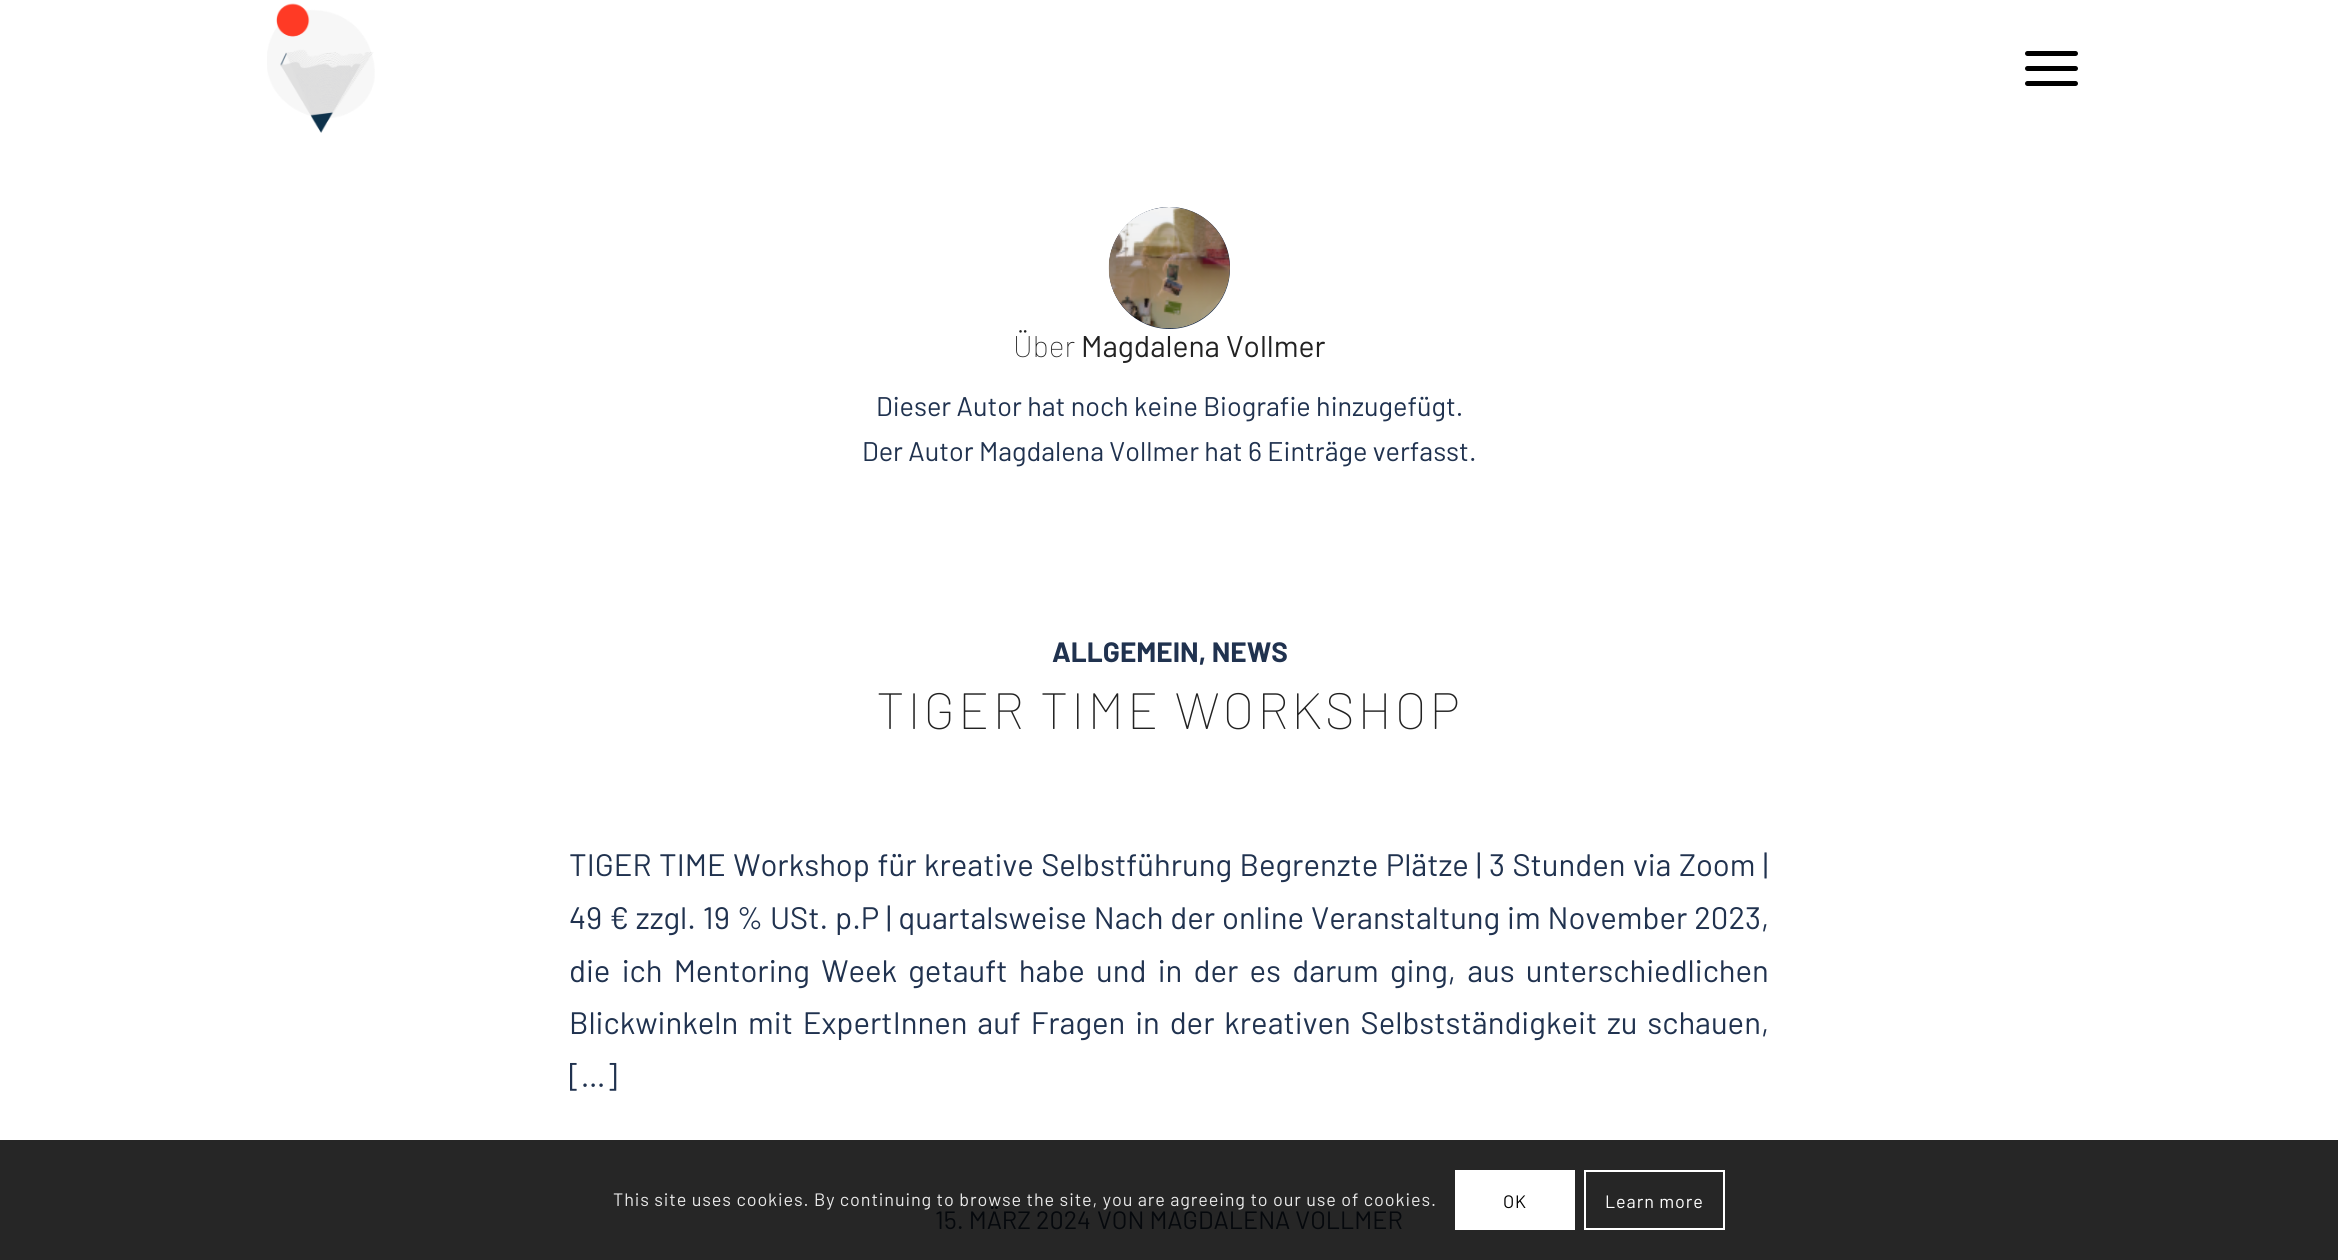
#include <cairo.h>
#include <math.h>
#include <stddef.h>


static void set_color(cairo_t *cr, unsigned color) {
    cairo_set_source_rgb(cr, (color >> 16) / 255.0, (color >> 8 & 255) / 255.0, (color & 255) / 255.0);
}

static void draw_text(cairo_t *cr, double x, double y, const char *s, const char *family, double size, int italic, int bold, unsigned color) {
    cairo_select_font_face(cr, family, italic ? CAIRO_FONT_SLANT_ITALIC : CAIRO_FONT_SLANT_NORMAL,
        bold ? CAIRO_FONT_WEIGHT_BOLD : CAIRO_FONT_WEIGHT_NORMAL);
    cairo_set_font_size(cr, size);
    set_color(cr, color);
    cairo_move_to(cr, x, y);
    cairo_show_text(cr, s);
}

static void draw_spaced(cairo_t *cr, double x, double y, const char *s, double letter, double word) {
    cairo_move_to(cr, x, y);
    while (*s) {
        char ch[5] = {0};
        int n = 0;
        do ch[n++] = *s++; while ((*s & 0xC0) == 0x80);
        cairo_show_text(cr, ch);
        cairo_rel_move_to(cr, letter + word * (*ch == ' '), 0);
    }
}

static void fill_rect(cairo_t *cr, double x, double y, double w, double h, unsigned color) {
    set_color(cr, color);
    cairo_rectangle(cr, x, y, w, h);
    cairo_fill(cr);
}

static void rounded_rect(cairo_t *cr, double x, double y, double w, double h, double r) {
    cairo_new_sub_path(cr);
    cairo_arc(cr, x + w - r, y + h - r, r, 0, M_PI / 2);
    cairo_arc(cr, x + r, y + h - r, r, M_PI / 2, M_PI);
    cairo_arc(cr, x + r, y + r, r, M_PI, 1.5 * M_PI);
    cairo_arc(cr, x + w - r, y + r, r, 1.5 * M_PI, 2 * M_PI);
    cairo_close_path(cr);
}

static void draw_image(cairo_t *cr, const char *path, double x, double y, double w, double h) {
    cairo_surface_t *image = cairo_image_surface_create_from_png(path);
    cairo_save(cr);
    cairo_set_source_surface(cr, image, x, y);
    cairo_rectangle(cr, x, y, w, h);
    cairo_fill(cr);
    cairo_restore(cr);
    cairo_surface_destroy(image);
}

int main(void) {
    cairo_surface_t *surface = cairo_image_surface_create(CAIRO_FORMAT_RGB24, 2338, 1260);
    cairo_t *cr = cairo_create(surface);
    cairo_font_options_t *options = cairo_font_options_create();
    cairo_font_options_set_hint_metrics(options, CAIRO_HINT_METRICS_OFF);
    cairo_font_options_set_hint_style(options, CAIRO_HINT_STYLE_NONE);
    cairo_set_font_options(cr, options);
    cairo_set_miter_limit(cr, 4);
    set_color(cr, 0xFFFFFF);
    cairo_paint(cr);
    draw_image(cr, "assets/img1.png", 267, 3, 108, 130);
    set_color(cr, 0x000000);
    rounded_rect(cr, 2025, 66, 53, 5, 2.5);
    cairo_fill(cr);
    rounded_rect(cr, 2025, 51, 53, 5, 2.5);
    cairo_fill(cr);
    rounded_rect(cr, 2025, 81, 53, 5, 2.5);
    cairo_fill(cr);
    fill_rect(cr, 0, 1140, 2338, 120, 0x262626);
    set_color(cr, 0x20324F);
    rounded_rect(cr, 1109, 207, 121, 122, 60.5);
    cairo_fill(cr);
    draw_image(cr, "assets/img2.png", 1108, 207, 122, 122);
    draw_text(cr, 1013, 357, "Über", "Barlow Thin", 30, 0, 0, 0x222222);
    draw_text(cr, 1081, 357, "Magdalena Vollmer", "Barlow", 30, 0, 0, 0x222222);
    draw_text(cr, 876, 416, "Dieser Autor hat noch keine Biografie hinzugefügt.", "Barlow", 27, 0, 0, 0x20324F);
    draw_text(cr, 862, 461, "Der Autor Magdalena Vollmer hat 6 Einträge verfasst.", "Barlow", 27, 0, 0, 0x20324F);
    draw_text(cr, 1052, 662, "ALLGEMEIN, NEWS", "Barlow", 28, 0, 1, 0x20324F);
    cairo_select_font_face(cr, "Barlow Thin", CAIRO_FONT_SLANT_NORMAL, CAIRO_FONT_WEIGHT_NORMAL);
    cairo_set_font_size(cr, 51);
    set_color(cr, 0x222222);
    draw_spaced(cr, 876, 729, "TIGER TIME WORKSHOP", 3, 0);
    cairo_select_font_face(cr, "Barlow", CAIRO_FONT_SLANT_NORMAL, CAIRO_FONT_WEIGHT_NORMAL);
    cairo_set_font_size(cr, 31.05);
    set_color(cr, 0x20324F);
    draw_spaced(cr, 569, 876, "TIGER TIME Workshop für kreative Selbstführung Begrenzte Plätze | 3 Stunden via Zoom |", 0, 1.25);
    draw_spaced(cr, 569, 929, "49 € zzgl. 19 % USt. p.P | quartalsweise Nach der online Veranstaltung im November 2023,", 0, 0.7);
    draw_spaced(cr, 569, 982, "die ich Mentoring Week getauft habe und in der es darum ging, aus unterschiedlichen", 0, 5);
    draw_spaced(cr, 569, 1034, "Blickwinkeln mit ExpertInnen auf Fragen in der kreativen Selbstständigkeit zu schauen,", 0, 3.6);
    draw_text(cr, 569, 1087, "[…]", "Barlow", 31.05, 0, 0, 0x20324F);
    draw_text(cr, 935, 1229, "15. MÄRZ 2024", "Barlow", 25.1, 0, 0, 0x05080C);
    draw_text(cr, 1097, 1229, "VON MAGDALENA VOLLMER", "Barlow", 25.1, 0, 0, 0x05080C);
    cairo_set_font_size(cr, 18);
    set_color(cr, 0xE9E9E9);
    draw_spaced(cr, 613, 1206, "This site uses cookies. By continuing to browse the site, you are agreeing to our use of cookies.", 0.9, 0);
    fill_rect(cr, 1455, 1170, 120, 60, 0xFFFFFF);
    set_color(cr, 0x000000);
    draw_spaced(cr, 1503, 1208, "OK", 0.9, 0);
    cairo_rectangle(cr, 1585, 1171, 139, 58);
    set_color(cr, 0xFFFFFF);
    cairo_stroke(cr);
    draw_spaced(cr, 1605, 1208, "Learn more", 0.9, 0);
    cairo_surface_write_to_png(surface, "output.png");
    cairo_font_options_destroy(options);
    cairo_destroy(cr);
    cairo_surface_destroy(surface);
    return 0;
}
